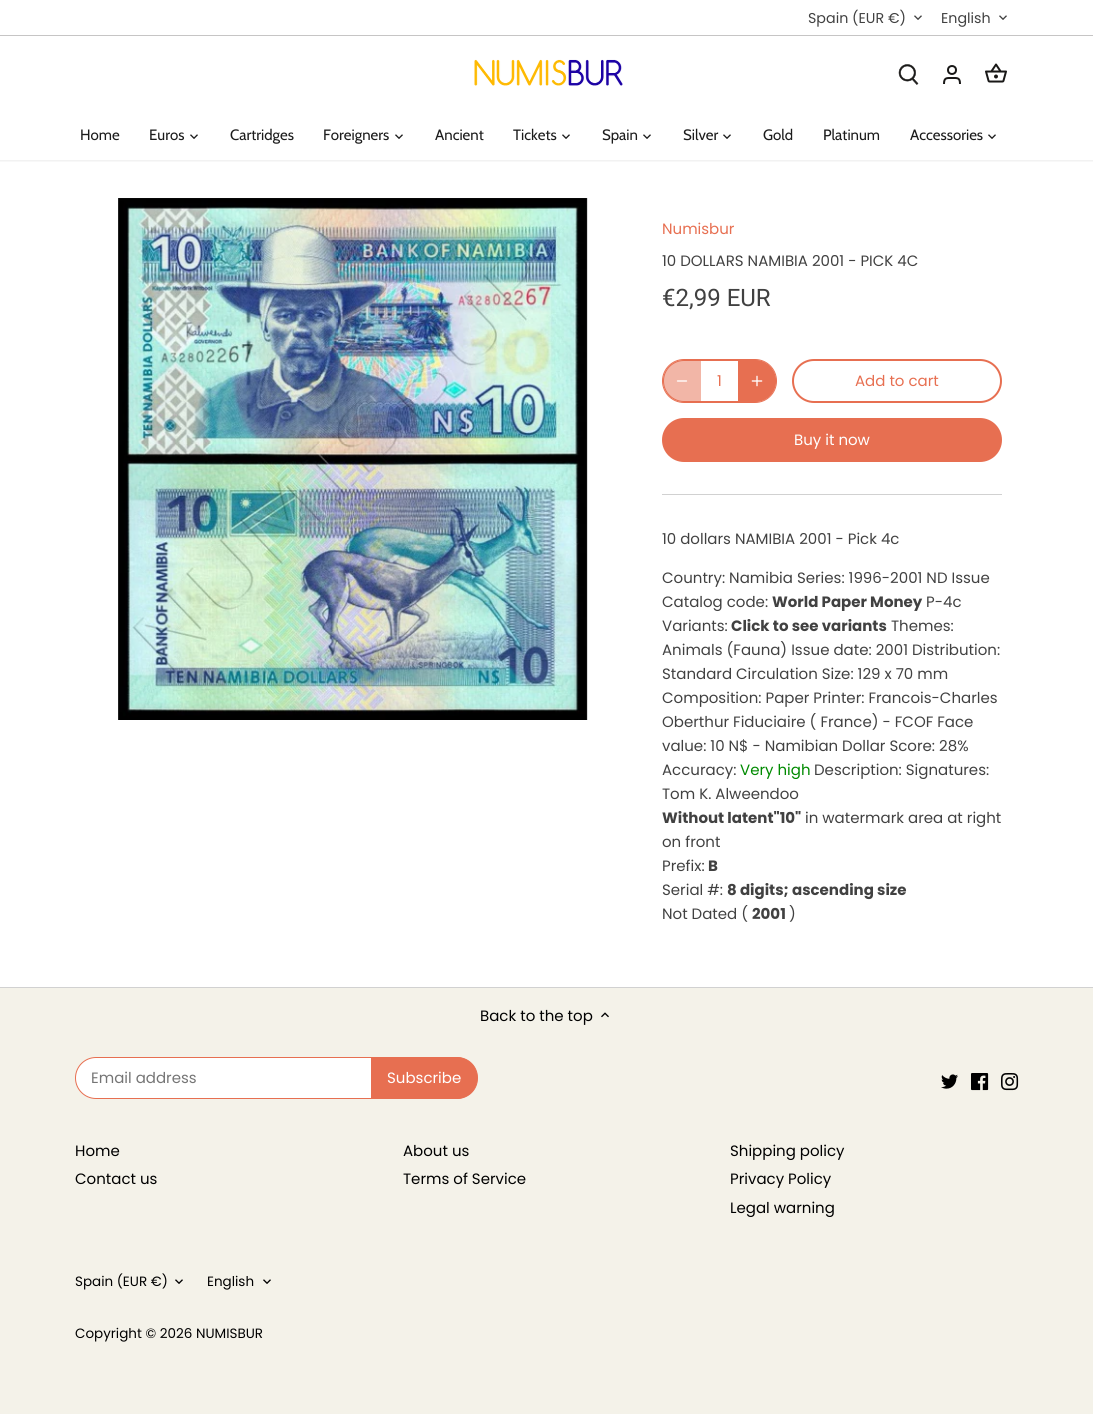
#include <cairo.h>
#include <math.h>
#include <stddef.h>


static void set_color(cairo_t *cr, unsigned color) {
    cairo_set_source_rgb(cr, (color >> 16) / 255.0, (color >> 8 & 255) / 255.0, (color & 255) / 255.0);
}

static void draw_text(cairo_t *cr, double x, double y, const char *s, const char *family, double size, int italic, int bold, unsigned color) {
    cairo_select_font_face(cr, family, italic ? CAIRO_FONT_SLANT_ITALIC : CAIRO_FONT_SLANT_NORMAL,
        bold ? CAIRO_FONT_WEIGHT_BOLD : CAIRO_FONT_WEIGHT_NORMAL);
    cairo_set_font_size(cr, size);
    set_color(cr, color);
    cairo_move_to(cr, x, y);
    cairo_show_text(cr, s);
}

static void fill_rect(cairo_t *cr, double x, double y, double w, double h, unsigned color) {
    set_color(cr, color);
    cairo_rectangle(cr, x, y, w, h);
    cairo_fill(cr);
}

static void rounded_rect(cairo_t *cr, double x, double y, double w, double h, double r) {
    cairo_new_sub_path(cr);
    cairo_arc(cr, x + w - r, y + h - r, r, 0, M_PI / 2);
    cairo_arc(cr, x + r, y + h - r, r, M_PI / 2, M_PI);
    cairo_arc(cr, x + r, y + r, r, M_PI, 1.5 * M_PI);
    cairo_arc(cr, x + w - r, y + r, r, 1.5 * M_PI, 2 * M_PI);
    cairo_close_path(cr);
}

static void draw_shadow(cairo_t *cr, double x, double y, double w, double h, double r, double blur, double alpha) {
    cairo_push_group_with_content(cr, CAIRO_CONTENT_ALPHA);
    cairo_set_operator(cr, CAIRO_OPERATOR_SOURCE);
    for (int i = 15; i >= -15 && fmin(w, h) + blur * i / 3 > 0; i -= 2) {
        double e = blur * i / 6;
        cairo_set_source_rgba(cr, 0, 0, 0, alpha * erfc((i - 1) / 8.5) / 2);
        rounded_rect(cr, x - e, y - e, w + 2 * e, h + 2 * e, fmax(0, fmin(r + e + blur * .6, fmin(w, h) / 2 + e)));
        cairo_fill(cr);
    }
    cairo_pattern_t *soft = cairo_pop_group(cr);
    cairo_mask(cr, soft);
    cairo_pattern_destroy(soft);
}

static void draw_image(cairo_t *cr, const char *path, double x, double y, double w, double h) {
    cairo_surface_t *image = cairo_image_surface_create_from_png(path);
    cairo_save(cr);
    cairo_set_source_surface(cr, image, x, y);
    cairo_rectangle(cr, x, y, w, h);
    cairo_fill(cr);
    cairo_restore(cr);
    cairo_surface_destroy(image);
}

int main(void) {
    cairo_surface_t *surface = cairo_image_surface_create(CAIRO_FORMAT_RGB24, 1093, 1414);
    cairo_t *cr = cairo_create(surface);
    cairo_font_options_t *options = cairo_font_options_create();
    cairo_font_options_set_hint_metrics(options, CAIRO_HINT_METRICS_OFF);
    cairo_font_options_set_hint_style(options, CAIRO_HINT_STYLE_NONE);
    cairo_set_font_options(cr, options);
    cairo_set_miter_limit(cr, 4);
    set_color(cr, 0xF4F2E9);
    cairo_paint(cr);
    fill_rect(cr, 0, 36, 1093, 951, 0xFFFFFF);
    cairo_save(cr);
    cairo_rectangle(cr, 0, 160, 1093, 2);
    cairo_clip(cr);
    set_color(cr, 0x000000);
    draw_shadow(cr, -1, 35, 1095, 126, 0, 1.5, 0.08);
    cairo_restore(cr);
    fill_rect(cr, 0, 0, 1093, 35, 0xFFFFFF);
    fill_rect(cr, 0, 35, 1093, 1, 0xC6C5C5);
    draw_text(cr, 808, 23, "Spain (EUR €)", "Poppins", 14.25, 0, 0, 0x414141);
    draw_image(cr, "assets/img1.png", 914, 15, 8, 5);
    draw_text(cr, 941, 23, "English", "Poppins", 14.25, 0, 0, 0x414141);
    draw_image(cr, "assets/img1.png", 999, 15, 8, 5);
    draw_image(cr, "assets/img2.png", 474, 59, 149, 27);
    draw_image(cr, "assets/img3.png", 898, 64, 21, 21);
    cairo_arc(cr, 952, 70, 4, 0, 2 * M_PI);
    set_color(cr, 0x191817);
    cairo_stroke(cr);
    cairo_new_path(cr);
    cairo_move_to(cr, 960, 84);
    cairo_curve_to(cr, 960, 77.5, 957.5, 78, 952, 78);
    cairo_curve_to(cr, 946.5, 78, 944, 77.5, 944, 84);
    cairo_stroke(cr);
    draw_image(cr, "assets/img4.png", 985, 63, 22, 20);
    draw_text(cr, 80, 140, "Home", "Cabin", 15, 0, 0, 0x1C1C1C);
    draw_text(cr, 149, 140, "Euros", "Cabin", 15, 0, 0, 0x1C1C1C);
    draw_image(cr, "assets/img5.png", 190, 134, 8, 5);
    draw_text(cr, 230, 140, "Cartridges", "Cabin", 15, 0, 0, 0x1C1C1C);
    draw_text(cr, 323, 140, "Foreigners", "Cabin", 15, 0, 0, 0x1C1C1C);
    draw_image(cr, "assets/img5.png", 395, 134, 8, 5);
    draw_text(cr, 435, 140, "Ancient", "Cabin", 15, 0, 0, 0x1C1C1C);
    draw_text(cr, 513, 140, "Tickets", "Cabin", 15, 0, 0, 0x1C1C1C);
    draw_image(cr, "assets/img5.png", 562, 134, 8, 5);
    draw_text(cr, 602, 140, "Spain", "Cabin", 15, 0, 0, 0x1C1C1C);
    draw_image(cr, "assets/img5.png", 643, 134, 8, 5);
    draw_text(cr, 683, 140, "Silver", "Cabin", 15, 0, 0, 0x1C1C1C);
    draw_image(cr, "assets/img5.png", 723, 134, 8, 5);
    draw_text(cr, 763, 140, "Gold", "Cabin", 15, 0, 0, 0x1C1C1C);
    draw_text(cr, 823, 140, "Platinum", "Cabin", 15, 0, 0, 0x1C1C1C);
    draw_text(cr, 910, 140, "Accessories", "Cabin", 15, 0, 0, 0x1C1C1C);
    draw_image(cr, "assets/img5.png", 988, 134, 8, 5);
    draw_image(cr, "assets/img6.png", 118, 198, 470, 522);
    draw_text(cr, 662, 234, "Numisbur", "Poppins", 15, 0, 0, 0xE76F51);
    draw_text(cr, 662, 266, "10 DOLLARS NAMIBIA 2001 - PICK 4C", "Poppins", 15, 0, 0, 0x414141);
    draw_text(cr, 662, 306, "€2,99 EUR", "Roboto", 24, 0, 0, 0x414141);
    rounded_rect(cr, 663.5, 360.5, 112, 41, 20.5);
    set_color(cr, 0xE76F51);
    cairo_set_line_width(cr, 1);
    cairo_stroke(cr);
    rounded_rect(cr, 662.5, 359.5, 114, 43, 21.5);
    cairo_stroke(cr);
    cairo_set_source_rgba(cr, 0.906, 0.435, 0.318, 0.5);
    cairo_new_path(cr);
    cairo_move_to(cr, 684, 360);
    cairo_line_to(cr, 701, 360);
    cairo_line_to(cr, 701, 402);
    cairo_line_to(cr, 684, 402);
    cairo_curve_to(cr, 672.5, 402, 663, 392.5, 663, 381);
    cairo_curve_to(cr, 663, 369.5, 672.5, 360, 684, 360);
    cairo_close_path(cr);
    cairo_fill(cr);
    cairo_new_path(cr);
    cairo_move_to(cr, 677.5, 381);
    cairo_line_to(cr, 686.5, 381);
    set_color(cr, 0xFFFFFF);
    cairo_set_line_width(cr, 1.3);
    cairo_set_line_cap(cr, CAIRO_LINE_CAP_ROUND);
    cairo_set_line_join(cr, CAIRO_LINE_JOIN_ROUND);
    cairo_stroke(cr);
    draw_text(cr, 717, 386, "1", "Poppins", 15, 0, 0, 0xE76F51);
    cairo_new_path(cr);
    cairo_move_to(cr, 738, 360);
    cairo_line_to(cr, 755, 360);
    cairo_curve_to(cr, 766.5, 360, 776, 369.5, 776, 381);
    cairo_curve_to(cr, 776, 392.5, 766.5, 402, 755, 402);
    cairo_line_to(cr, 738, 402);
    cairo_close_path(cr);
    cairo_fill(cr);
    draw_image(cr, "assets/img7.png", 751, 375, 12, 12);
    rounded_rect(cr, 793, 360, 208, 42, 21);
    cairo_set_line_width(cr, 2);
    cairo_set_line_cap(cr, CAIRO_LINE_CAP_BUTT);
    cairo_set_line_join(cr, CAIRO_LINE_JOIN_MITER);
    cairo_stroke(cr);
    draw_text(cr, 855, 386, "Add to cart", "Poppins", 15, 0, 0, 0xE76F51);
    cairo_new_path(cr);
    cairo_move_to(cr, 892, 376);
    cairo_curve_to(cr, 894.5, 373.5, 898.5, 373.5, 901, 376);
    set_color(cr, 0xFFFFFF);
    cairo_stroke(cr);
    set_color(cr, 0xE76F51);
    rounded_rect(cr, 662, 418, 340, 44, 22);
    cairo_fill(cr);
    draw_text(cr, 794, 445, "Buy it now", "Poppins", 15, 0, 0, 0xFFFFFF);
    fill_rect(cr, 662, 494, 340, 1, 0xD1D1D1);
    draw_text(cr, 662, 544, "10 dollars NAMIBIA 2001 - Pick 4c", "Poppins", 15, 0, 0, 0x414141);
    draw_text(cr, 662, 583, "Country: Namibia Series: 1996-2001 ND Issue", "Poppins", 15, 0, 0, 0x414141);
    draw_text(cr, 662, 607, "Catalog code:", "Poppins", 15, 0, 0, 0x414141);
    draw_text(cr, 772, 607, "World Paper Money", "Poppins", 15, 0, 1, 0x414141);
    draw_text(cr, 926, 607, "P-4c", "Poppins", 15, 0, 0, 0x414141);
    draw_text(cr, 662, 631, "Variants:", "Poppins", 15, 0, 0, 0x414141);
    draw_text(cr, 731, 631, "Click to see variants", "Poppins", 15, 0, 1, 0x414141);
    draw_text(cr, 891, 631, "Themes:", "Poppins", 15, 0, 0, 0x414141);
    draw_text(cr, 662, 655, "Animals (Fauna) Issue date: 2001 Distribution:", "Poppins", 15, 0, 0, 0x414141);
    draw_text(cr, 662, 679, "Standard Circulation Size: 129 x 70 mm", "Poppins", 15, 0, 0, 0x414141);
    draw_text(cr, 662, 703, "Composition: Paper Printer: Francois-Charles", "Poppins", 15, 0, 0, 0x414141);
    draw_text(cr, 662, 727, "Oberthur Fiduciaire ( France) - FCOF Face", "Poppins", 15, 0, 0, 0x414141);
    draw_text(cr, 662, 751, "value: 10 N$ - Namibian Dollar Score: 28%", "Poppins", 15, 0, 0, 0x414141);
    draw_text(cr, 662, 775, "Accuracy:", "Poppins", 15, 0, 0, 0x414141);
    draw_text(cr, 740, 775, "Very high", "Poppins", 15, 0, 0, 0x008A00);
    draw_text(cr, 814, 775, "Description: Signatures:", "Poppins", 15, 0, 0, 0x414141);
    draw_text(cr, 662, 799, "Tom K. Alweendoo", "Poppins", 15, 0, 0, 0x414141);
    draw_text(cr, 662, 823, "Without latent\"10\"", "Poppins", 15, 0, 1, 0x414141);
    draw_text(cr, 805, 823, "in watermark area at right", "Poppins", 15, 0, 0, 0x414141);
    draw_text(cr, 662, 847, "on front", "Poppins", 15, 0, 0, 0x414141);
    draw_text(cr, 662, 871, "Prefix:", "Poppins", 15, 0, 0, 0x414141);
    draw_text(cr, 708, 871, "B", "Poppins", 15, 0, 1, 0x414141);
    draw_text(cr, 662, 895, "Serial #:", "Poppins", 15, 0, 0, 0x414141);
    draw_text(cr, 727, 895, "8 digits; ascending size", "Poppins", 15, 0, 1, 0x414141);
    draw_text(cr, 662, 919, "Not Dated (", "Poppins", 15, 0, 0, 0x414141);
    draw_text(cr, 752, 919, "2001", "Poppins", 15, 0, 1, 0x414141);
    draw_text(cr, 789, 919, ")", "Poppins", 15, 0, 0, 0x414141);
    fill_rect(cr, 0, 987, 1093, 1, 0xD1D1D1);
    draw_text(cr, 480, 1021, "Back to the top", "Poppins", 15, 0, 0, 0x000000);
    draw_image(cr, "assets/img8.png", 601, 1012, 8, 6);
    set_color(cr, 0xFFFFFF);
    rounded_rect(cr, 75.5, 1057.5, 401, 41, 20.5);
    cairo_fill_preserve(cr);
    set_color(cr, 0xE76F51);
    cairo_set_line_width(cr, 1);
    cairo_stroke(cr);
    draw_text(cr, 91, 1083, "Email address", "Poppins", 15, 0, 0, 0x757575);
    set_color(cr, 0xE76F51);
    cairo_new_path(cr);
    cairo_move_to(cr, 371.5, 1057.5);
    cairo_line_to(cr, 457, 1057.5);
    cairo_curve_to(cr, 468.5, 1057.5, 477.5, 1066.5, 477.5, 1078);
    cairo_curve_to(cr, 477.5, 1089.5, 468.5, 1098.5, 457, 1098.5);
    cairo_line_to(cr, 371.5, 1098.5);
    cairo_close_path(cr);
    cairo_fill_preserve(cr);
    cairo_stroke(cr);
    draw_text(cr, 387, 1083, "Subscribe", "Poppins", 15, 0, 0, 0xFFFFFF);
    draw_image(cr, "assets/img9.png", 941, 1074, 17, 15);
    draw_image(cr, "assets/img10.png", 971, 1073, 18, 18);
    draw_image(cr, "assets/img11.png", 1001, 1073, 18, 18);
    draw_text(cr, 75, 1156, "Home", "Poppins", 15, 0, 0, 0x000000);
    draw_text(cr, 75, 1184, "Contact us", "Poppins", 15, 0, 0, 0x000000);
    draw_text(cr, 403, 1156, "About us", "Poppins", 15, 0, 0, 0x000000);
    draw_text(cr, 403, 1184, "Terms of Service", "Poppins", 15, 0, 0, 0x000000);
    draw_text(cr, 730, 1156, "Shipping policy", "Poppins", 15, 0, 0, 0x000000);
    draw_text(cr, 730, 1184, "Privacy Policy", "Poppins", 15, 0, 0, 0x000000);
    draw_text(cr, 730, 1213, "Legal warning", "Poppins", 15, 0, 0, 0x000000);
    draw_text(cr, 75, 1286, "Spain (EUR €)", "Poppins", 13.5, 0, 0, 0x000000);
    draw_image(cr, "assets/img12.png", 175, 1279, 8, 5);
    draw_text(cr, 207, 1286, "English", "Poppins", 13.5, 0, 0, 0x000000);
    draw_image(cr, "assets/img12.png", 263, 1279, 8, 5);
    draw_text(cr, 75, 1338, "Copyright © 2026 NUMISBUR", "Poppins", 13.5, 0, 0, 0x000000);
    cairo_surface_write_to_png(surface, "output.png");
    cairo_font_options_destroy(options);
    cairo_destroy(cr);
    cairo_surface_destroy(surface);
    return 0;
}
